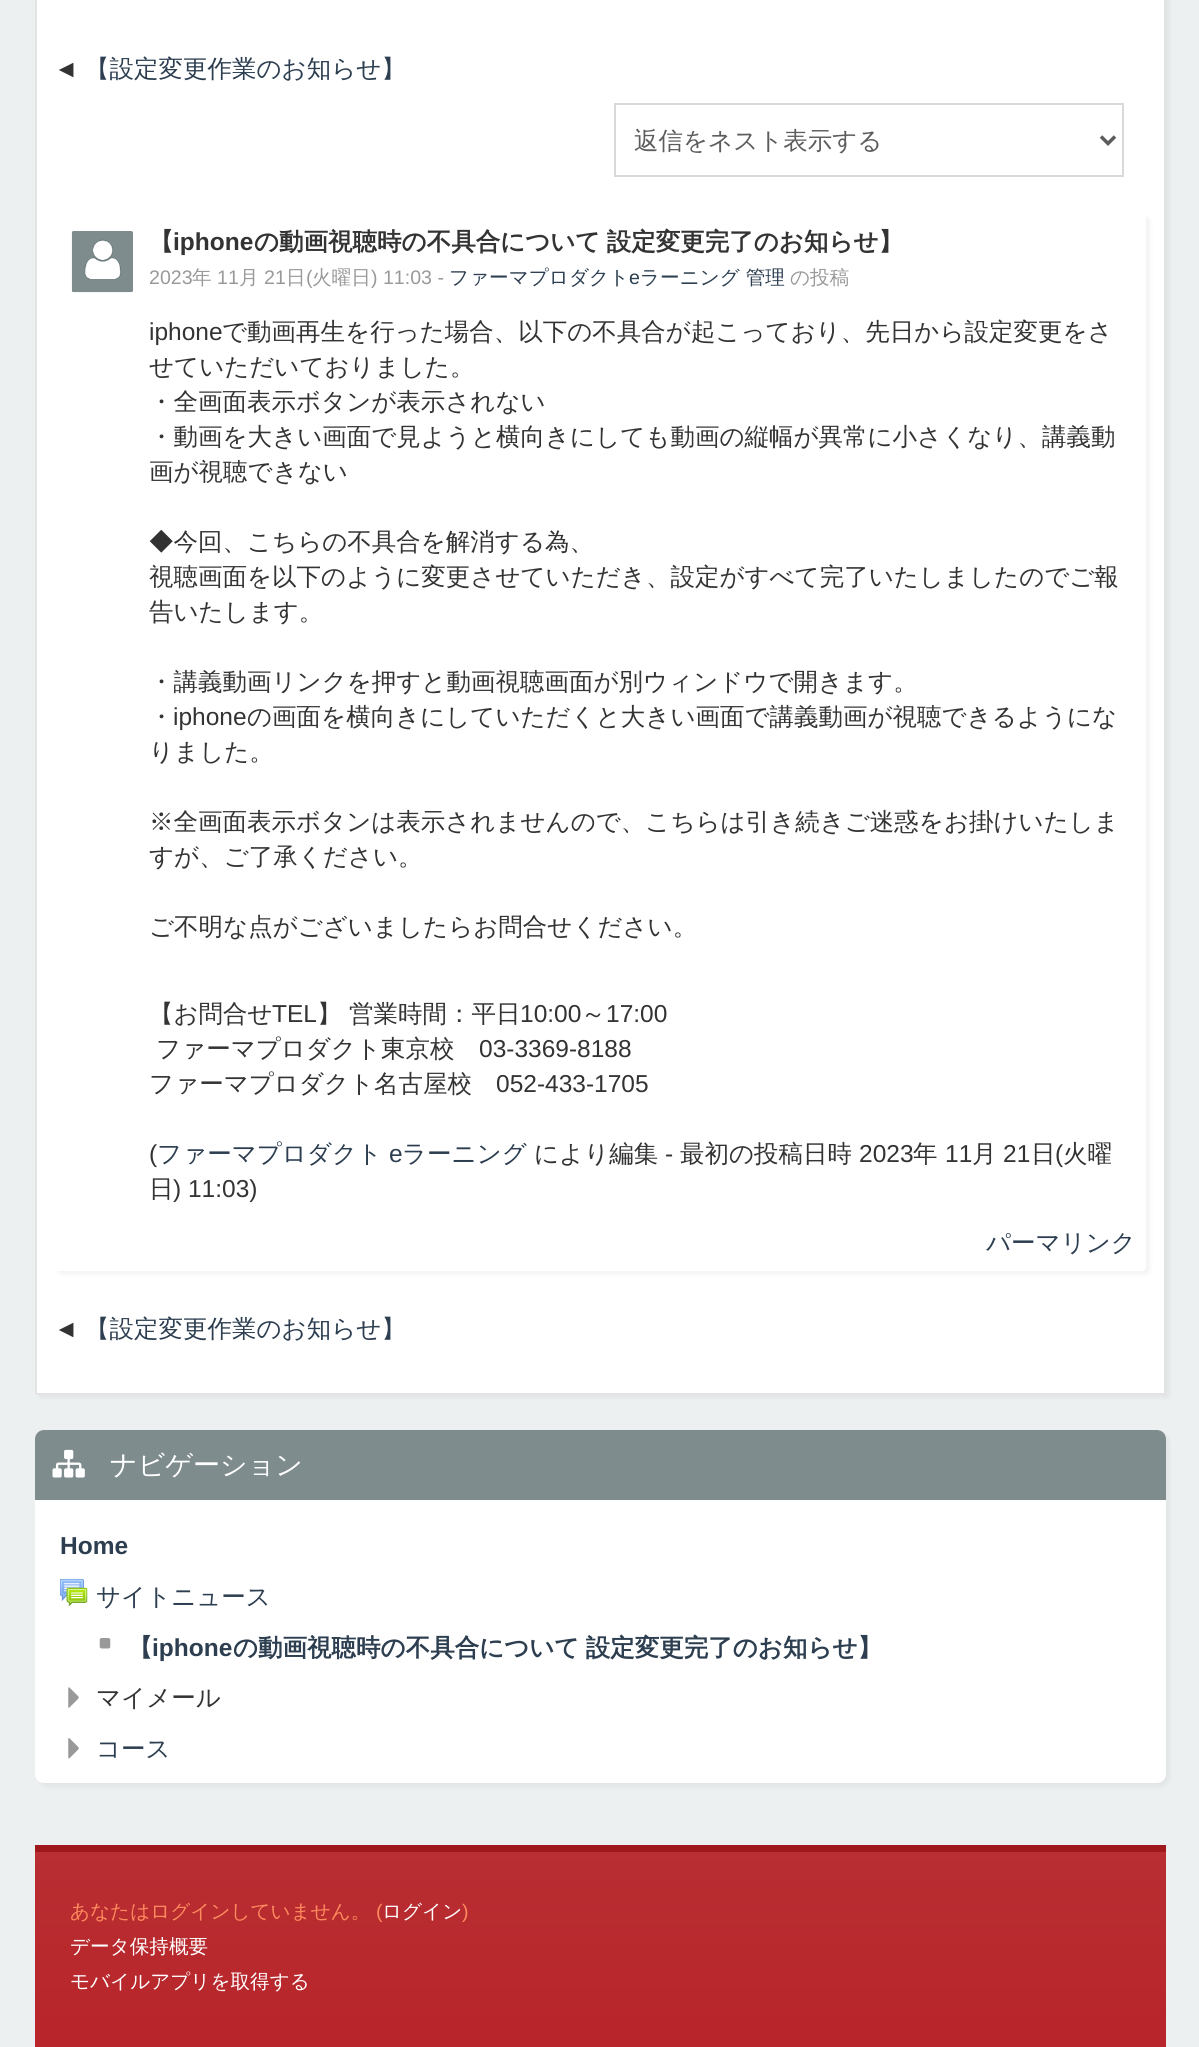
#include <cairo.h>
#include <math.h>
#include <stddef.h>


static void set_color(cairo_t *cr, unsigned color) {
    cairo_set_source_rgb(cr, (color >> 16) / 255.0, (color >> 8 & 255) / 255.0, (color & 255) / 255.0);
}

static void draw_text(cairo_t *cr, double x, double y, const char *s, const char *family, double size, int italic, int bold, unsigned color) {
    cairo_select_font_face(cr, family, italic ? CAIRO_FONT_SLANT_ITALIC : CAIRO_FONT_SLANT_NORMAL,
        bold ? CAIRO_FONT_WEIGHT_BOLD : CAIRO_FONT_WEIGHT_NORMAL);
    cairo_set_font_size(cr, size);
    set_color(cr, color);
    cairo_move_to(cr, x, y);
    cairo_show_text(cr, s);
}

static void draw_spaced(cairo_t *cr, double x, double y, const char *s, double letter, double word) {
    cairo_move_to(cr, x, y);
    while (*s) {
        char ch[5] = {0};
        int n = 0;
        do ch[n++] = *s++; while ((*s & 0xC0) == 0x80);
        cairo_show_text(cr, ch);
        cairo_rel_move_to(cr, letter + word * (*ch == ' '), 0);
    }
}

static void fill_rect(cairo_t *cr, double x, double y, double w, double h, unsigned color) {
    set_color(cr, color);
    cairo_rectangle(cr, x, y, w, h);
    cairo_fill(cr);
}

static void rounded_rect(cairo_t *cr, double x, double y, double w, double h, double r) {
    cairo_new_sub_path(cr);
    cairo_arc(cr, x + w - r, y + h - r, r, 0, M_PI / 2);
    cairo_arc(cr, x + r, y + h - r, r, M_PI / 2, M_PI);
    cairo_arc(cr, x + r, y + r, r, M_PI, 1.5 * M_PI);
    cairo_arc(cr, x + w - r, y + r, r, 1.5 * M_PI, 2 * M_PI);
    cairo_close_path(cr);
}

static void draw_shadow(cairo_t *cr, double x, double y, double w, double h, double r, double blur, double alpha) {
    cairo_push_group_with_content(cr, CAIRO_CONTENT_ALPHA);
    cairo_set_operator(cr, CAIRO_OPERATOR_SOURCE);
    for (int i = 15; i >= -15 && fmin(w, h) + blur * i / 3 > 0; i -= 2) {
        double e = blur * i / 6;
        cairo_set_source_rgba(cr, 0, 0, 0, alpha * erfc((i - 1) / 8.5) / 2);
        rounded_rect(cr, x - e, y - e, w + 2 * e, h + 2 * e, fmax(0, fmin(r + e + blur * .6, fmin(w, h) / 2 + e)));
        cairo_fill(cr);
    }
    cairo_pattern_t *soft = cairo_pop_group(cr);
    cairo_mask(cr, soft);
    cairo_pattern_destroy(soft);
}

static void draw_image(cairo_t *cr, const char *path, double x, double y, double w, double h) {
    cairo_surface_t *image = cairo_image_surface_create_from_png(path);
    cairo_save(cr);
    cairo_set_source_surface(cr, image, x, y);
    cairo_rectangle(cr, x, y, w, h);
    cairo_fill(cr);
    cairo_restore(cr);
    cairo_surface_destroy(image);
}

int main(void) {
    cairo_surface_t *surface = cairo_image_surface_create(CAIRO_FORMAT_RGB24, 1199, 2047);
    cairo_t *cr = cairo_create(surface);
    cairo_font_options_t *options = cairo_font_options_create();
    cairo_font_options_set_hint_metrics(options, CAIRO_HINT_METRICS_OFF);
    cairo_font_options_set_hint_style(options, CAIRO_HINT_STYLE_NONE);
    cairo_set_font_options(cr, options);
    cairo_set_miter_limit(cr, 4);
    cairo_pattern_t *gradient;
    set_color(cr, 0xECF0F1);
    cairo_paint(cr);
    set_color(cr, 0x000000);
    draw_shadow(cr, 39, -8, 1130, 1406, 2, 2, 0.05);
    set_color(cr, 0xFFFFFF);
    rounded_rect(cr, 36, -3, 1129, 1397, 1);
    cairo_fill_preserve(cr);
    set_color(cr, 0xE3E3E3);
    cairo_stroke(cr);
    draw_text(cr, 54, 77, "◄", "Liberation Sans", 24.5, 0, 0, 0x333333);
    draw_text(cr, 85, 77, "【設定変更作業のお知らせ】", "WenQuanYi Zen Hei Medium", 24.5, 0, 0, 0x2C3E50);
    cairo_rectangle(cr, 615, 104, 508, 72);
    set_color(cr, 0xD9D9D9);
    cairo_stroke(cr);
    cairo_new_path(cr);
    cairo_move_to(cr, 1101, 136.5);
    cairo_line_to(cr, 1108, 143.5);
    cairo_line_to(cr, 1115, 136.5);
    set_color(cr, 0x5C5C5C);
    cairo_set_line_width(cr, 3.5);
    cairo_stroke(cr);
    draw_text(cr, 634, 149, "返信をネスト表示する", "WenQuanYi Zen Hei Medium", 24.5, 0, 0, 0x5C5C5C);
    set_color(cr, 0x000000);
    draw_shadow(cr, 58, 217, 1092, 1057, 4, 2, 0.05);
    set_color(cr, 0xFFFFFF);
    rounded_rect(cr, 54, 214, 1092, 1057, 4);
    cairo_fill(cr);
    draw_image(cr, "assets/img1.png", 71, 231, 62, 62);
    draw_text(cr, 149, 250, "【", "WenQuanYi Zen Hei", 24.5, 0, 1, 0x333333);
    draw_text(cr, 173, 250, "iphone", "Liberation Sans", 24.5, 0, 1, 0x333333);
    cairo_select_font_face(cr, "WenQuanYi Zen Hei", CAIRO_FONT_SLANT_NORMAL, CAIRO_FONT_WEIGHT_BOLD);
    draw_spaced(cr, 254, 250, "の動画視聴時の不具合について 設定変更完了のお知らせ】", 0, -1);
    draw_text(cr, 149, 284, "2023", "Liberation Sans", 19.6, 0, 0, 0x999999);
    draw_text(cr, 192, 284, "年", "WenQuanYi Zen Hei Medium", 19.6, 0, 0, 0x999999);
    draw_text(cr, 217, 284, "11", "Liberation Sans", 19.6, 0, 0, 0x999999);
    draw_text(cr, 239, 284, "月", "WenQuanYi Zen Hei Medium", 19.6, 0, 0, 0x999999);
    draw_text(cr, 264, 284, "21", "Liberation Sans", 19.6, 0, 0, 0x999999);
    draw_text(cr, 286, 284, "日", "WenQuanYi Zen Hei Medium", 19.6, 0, 0, 0x999999);
    draw_text(cr, 306, 284, "(", "Liberation Sans", 19.6, 0, 0, 0x999999);
    draw_text(cr, 312, 284, "火曜日", "WenQuanYi Zen Hei Medium", 19.6, 0, 0, 0x999999);
    draw_text(cr, 371, 284, ") 11:03 -", "Liberation Sans", 19.6, 0, 0, 0x999999);
    draw_text(cr, 449, 284, "ファーマプロダクト", "WenQuanYi Zen Hei Medium", 19.6, 0, 0, 0x2C3E50);
    draw_text(cr, 629, 284, "e", "Liberation Sans", 19.6, 0, 0, 0x2C3E50);
    draw_text(cr, 640, 284, "ラーニング 管理", "WenQuanYi Zen Hei Medium", 19.6, 0, 0, 0x2C3E50);
    draw_text(cr, 790, 284, "の投稿", "WenQuanYi Zen Hei Medium", 19.6, 0, 0, 0x999999);
    draw_text(cr, 149, 340, "iphone", "Liberation Sans", 24.5, 0, 0, 0x333333);
    draw_text(cr, 222, 340, "で動画再生を行った場合、以下の不具合が起こっており、先日から設定変更をさ", "WenQuanYi Zen Hei Medium", 24.5, 0, 0, 0x333333);
    draw_text(cr, 149, 375, "せていただいておりました。", "WenQuanYi Zen Hei Medium", 24.5, 0, 0, 0x333333);
    draw_text(cr, 149, 410, "・全画面表示ボタンが表示されない", "WenQuanYi Zen Hei Medium", 24.5, 0, 0, 0x333333);
    draw_text(cr, 149, 445, "・動画を大きい画面で見ようと横向きにしても動画の縦幅が異常に小さくなり、講義動", "WenQuanYi Zen Hei Medium", 24.5, 0, 0, 0x333333);
    draw_text(cr, 149, 480, "画が視聴できない", "WenQuanYi Zen Hei Medium", 24.5, 0, 0, 0x333333);
    draw_text(cr, 149, 550, "◆今回、こちらの不具合を解消する為、", "WenQuanYi Zen Hei Medium", 24.5, 0, 0, 0x333333);
    draw_text(cr, 149, 585, "視聴画面を以下のように変更させていただき、設定がすべて完了いたしましたのでご報", "WenQuanYi Zen Hei Medium", 24.5, 0, 0, 0x333333);
    draw_text(cr, 149, 620, "告いたします。", "WenQuanYi Zen Hei Medium", 24.5, 0, 0, 0x333333);
    draw_text(cr, 149, 690, "・講義動画リンクを押すと動画視聴画面が別ウィンドウで開きます。", "WenQuanYi Zen Hei Medium", 24.5, 0, 0, 0x333333);
    draw_text(cr, 149, 725, "・", "WenQuanYi Zen Hei Medium", 24.5, 0, 0, 0x333333);
    draw_text(cr, 173, 725, "iphone", "Liberation Sans", 24.5, 0, 0, 0x333333);
    draw_text(cr, 247, 725, "の画面を横向きにしていただくと大きい画面で講義動画が視聴できるようにな", "WenQuanYi Zen Hei Medium", 24.5, 0, 0, 0x333333);
    draw_text(cr, 149, 760, "りました。", "WenQuanYi Zen Hei Medium", 24.5, 0, 0, 0x333333);
    draw_text(cr, 149, 830, "※全画面表示ボタンは表示されませんので、こちらは引き続きご迷惑をお掛けいたしま", "WenQuanYi Zen Hei Medium", 24.5, 0, 0, 0x333333);
    draw_text(cr, 149, 865, "すが、ご了承ください。", "WenQuanYi Zen Hei Medium", 24.5, 0, 0, 0x333333);
    draw_text(cr, 149, 935, "ご不明な点がございましたらお問合せください。", "WenQuanYi Zen Hei Medium", 24.5, 0, 0, 0x333333);
    draw_text(cr, 149, 1022, "【お問合せ", "WenQuanYi Zen Hei Medium", 24.5, 0, 0, 0x333333);
    draw_text(cr, 272, 1022, "TEL", "Liberation Sans", 24.5, 0, 0, 0x333333);
    draw_text(cr, 317, 1022, "】", "WenQuanYi Zen Hei Medium", 24.5, 0, 0, 0x333333);
    draw_text(cr, 349, 1022, "営業時間：平日", "WenQuanYi Zen Hei Medium", 24.5, 0, 0, 0x333333);
    draw_text(cr, 520, 1022, "10:00", "Liberation Sans", 24.5, 0, 0, 0x333333);
    draw_text(cr, 581, 1022, "～", "WenQuanYi Zen Hei Medium", 24.5, 0, 0, 0x333333);
    draw_text(cr, 606, 1022, "17:00", "Liberation Sans", 24.5, 0, 0, 0x333333);
    draw_text(cr, 156, 1057, "ファーマプロダクト東京校", "WenQuanYi Zen Hei Medium", 24.5, 0, 0, 0x333333);
    draw_text(cr, 479, 1057, "03-3369-8188", "Liberation Sans", 24.5, 0, 0, 0x333333);
    draw_text(cr, 149, 1092, "ファーマプロダクト名古屋校", "WenQuanYi Zen Hei Medium", 24.5, 0, 0, 0x333333);
    draw_text(cr, 496, 1092, "052-433-1705", "Liberation Sans", 24.5, 0, 0, 0x333333);
    draw_text(cr, 149, 1162, "(", "Liberation Sans", 24.5, 0, 0, 0x333333);
    draw_text(cr, 157, 1162, "ファーマプロダクト", "WenQuanYi Zen Hei Medium", 24.5, 0, 0, 0x2C3E50);
    draw_text(cr, 389, 1162, "e", "Liberation Sans", 24.5, 0, 0, 0x2C3E50);
    draw_text(cr, 402, 1162, "ラーニング", "WenQuanYi Zen Hei Medium", 24.5, 0, 0, 0x2C3E50);
    draw_text(cr, 534, 1162, "により編集", "WenQuanYi Zen Hei Medium", 24.5, 0, 0, 0x333333);
    draw_text(cr, 665, 1162, "-", "Liberation Sans", 24.5, 0, 0, 0x333333);
    draw_text(cr, 680, 1162, "最初の投稿日時", "WenQuanYi Zen Hei Medium", 24.5, 0, 0, 0x333333);
    draw_text(cr, 859, 1162, "2023", "Liberation Sans", 24.5, 0, 0, 0x333333);
    draw_text(cr, 913, 1162, "年", "WenQuanYi Zen Hei Medium", 24.5, 0, 0, 0x333333);
    draw_text(cr, 945, 1162, "11", "Liberation Sans", 24.5, 0, 0, 0x333333);
    draw_text(cr, 972, 1162, "月", "WenQuanYi Zen Hei Medium", 24.5, 0, 0, 0x333333);
    draw_text(cr, 1003, 1162, "21", "Liberation Sans", 24.5, 0, 0, 0x333333);
    draw_text(cr, 1031, 1162, "日", "WenQuanYi Zen Hei Medium", 24.5, 0, 0, 0x333333);
    draw_text(cr, 1055, 1162, "(", "Liberation Sans", 24.5, 0, 0, 0x333333);
    draw_text(cr, 1063, 1162, "火曜", "WenQuanYi Zen Hei Medium", 24.5, 0, 0, 0x333333);
    draw_text(cr, 149, 1197, "日", "WenQuanYi Zen Hei Medium", 24.5, 0, 0, 0x333333);
    draw_text(cr, 173, 1197, ") 11:03)", "Liberation Sans", 24.5, 0, 0, 0x333333);
    draw_text(cr, 986, 1251, "パーマリンク", "WenQuanYi Zen Hei Medium", 24.5, 0, 0, 0x2C3E50);
    draw_text(cr, 54, 1337, "◄", "Liberation Sans", 24.5, 0, 0, 0x333333);
    draw_text(cr, 85, 1337, "【設定変更作業のお知らせ】", "WenQuanYi Zen Hei Medium", 24.5, 0, 0, 0x2C3E50);
    set_color(cr, 0x000000);
    draw_shadow(cr, 39, 1433, 1130, 354, 9, 2, 0.05);
    set_color(cr, 0xFFFFFF);
    rounded_rect(cr, 35, 1430, 1131, 353, 9);
    cairo_fill(cr);
    set_color(cr, 0x7F8C8D);
    cairo_new_path(cr);
    cairo_move_to(cr, 44, 1430);
    cairo_line_to(cr, 1157, 1430);
    cairo_curve_to(cr, 1162, 1430, 1166, 1434, 1166, 1439);
    cairo_line_to(cr, 1166, 1500);
    cairo_line_to(cr, 35, 1500);
    cairo_line_to(cr, 35, 1439);
    cairo_curve_to(cr, 35, 1434, 39, 1430, 44, 1430);
    cairo_close_path(cr);
    cairo_fill(cr);
    draw_image(cr, "assets/img2.png", 52, 1449, 33, 29);
    draw_text(cr, 110, 1474, "ナビゲーション", "WenQuanYi Zen Hei Medium", 27, 0, 0, 0xFFFFFF);
    draw_text(cr, 60, 1554, "Home", "Liberation Sans", 24.5, 0, 1, 0x2C3E50);
    draw_image(cr, "assets/img3.png", 60, 1579, 28, 28);
    draw_text(cr, 96, 1605, "サイトニュース", "WenQuanYi Zen Hei Medium", 24.5, 0, 0, 0x2C3E50);
    draw_image(cr, "assets/img4.png", 99, 1638, 12, 11);
    draw_text(cr, 128, 1656, "【", "WenQuanYi Zen Hei", 24.5, 0, 1, 0x2C3E50);
    draw_text(cr, 152, 1656, "iphone", "Liberation Sans", 24.5, 0, 1, 0x2C3E50);
    cairo_select_font_face(cr, "WenQuanYi Zen Hei", CAIRO_FONT_SLANT_NORMAL, CAIRO_FONT_WEIGHT_BOLD);
    draw_spaced(cr, 233, 1656, "の動画視聴時の不具合について 設定変更完了のお知らせ】", 0, -1);
    draw_image(cr, "assets/img5.png", 68, 1687, 11, 21);
    draw_text(cr, 96, 1706, "マイメール", "WenQuanYi Zen Hei Medium", 24.5, 0, 0, 0x333333);
    draw_image(cr, "assets/img6.png", 68, 1738, 11, 21);
    draw_text(cr, 96, 1757, "コース", "WenQuanYi Zen Hei Medium", 24.5, 0, 0, 0x2C3E50);
    gradient = cairo_pattern_create_linear(600, 1852, 600, 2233);
    cairo_pattern_add_color_stop_rgba(gradient, 0, 0.722, 0.18, 0.196, 1);
    cairo_pattern_add_color_stop_rgba(gradient, 1, 0.722, 0.11, 0.133, 1);
    cairo_set_source(cr, gradient);
    cairo_pattern_destroy(gradient);
    cairo_rectangle(cr, 35, 1852, 1131, 195);
    cairo_fill(cr);
    fill_rect(cr, 35, 1845, 1131, 7, 0x9E181C);
    draw_text(cr, 70, 1918, "あなたはログインしていません。", "WenQuanYi Zen Hei Medium", 19.6, 0, 0, 0xFF8B5E);
    draw_text(cr, 376, 1918, "(", "Liberation Sans", 19.6, 0, 0, 0xFF8B5E);
    draw_text(cr, 382, 1918, "ログイン", "WenQuanYi Zen Hei Medium", 19.6, 0, 0, 0xFFFFFF);
    draw_text(cr, 462, 1918, ")", "Liberation Sans", 19.6, 0, 0, 0xFF8B5E);
    draw_text(cr, 70, 1953, "データ保持概要", "WenQuanYi Zen Hei Medium", 19.6, 0, 0, 0xFFFFFF);
    draw_text(cr, 70, 1988, "モバイルアプリを取得する", "WenQuanYi Zen Hei Medium", 19.6, 0, 0, 0xFFFFFF);
    cairo_surface_write_to_png(surface, "output.png");
    cairo_font_options_destroy(options);
    cairo_destroy(cr);
    cairo_surface_destroy(surface);
    return 0;
}
